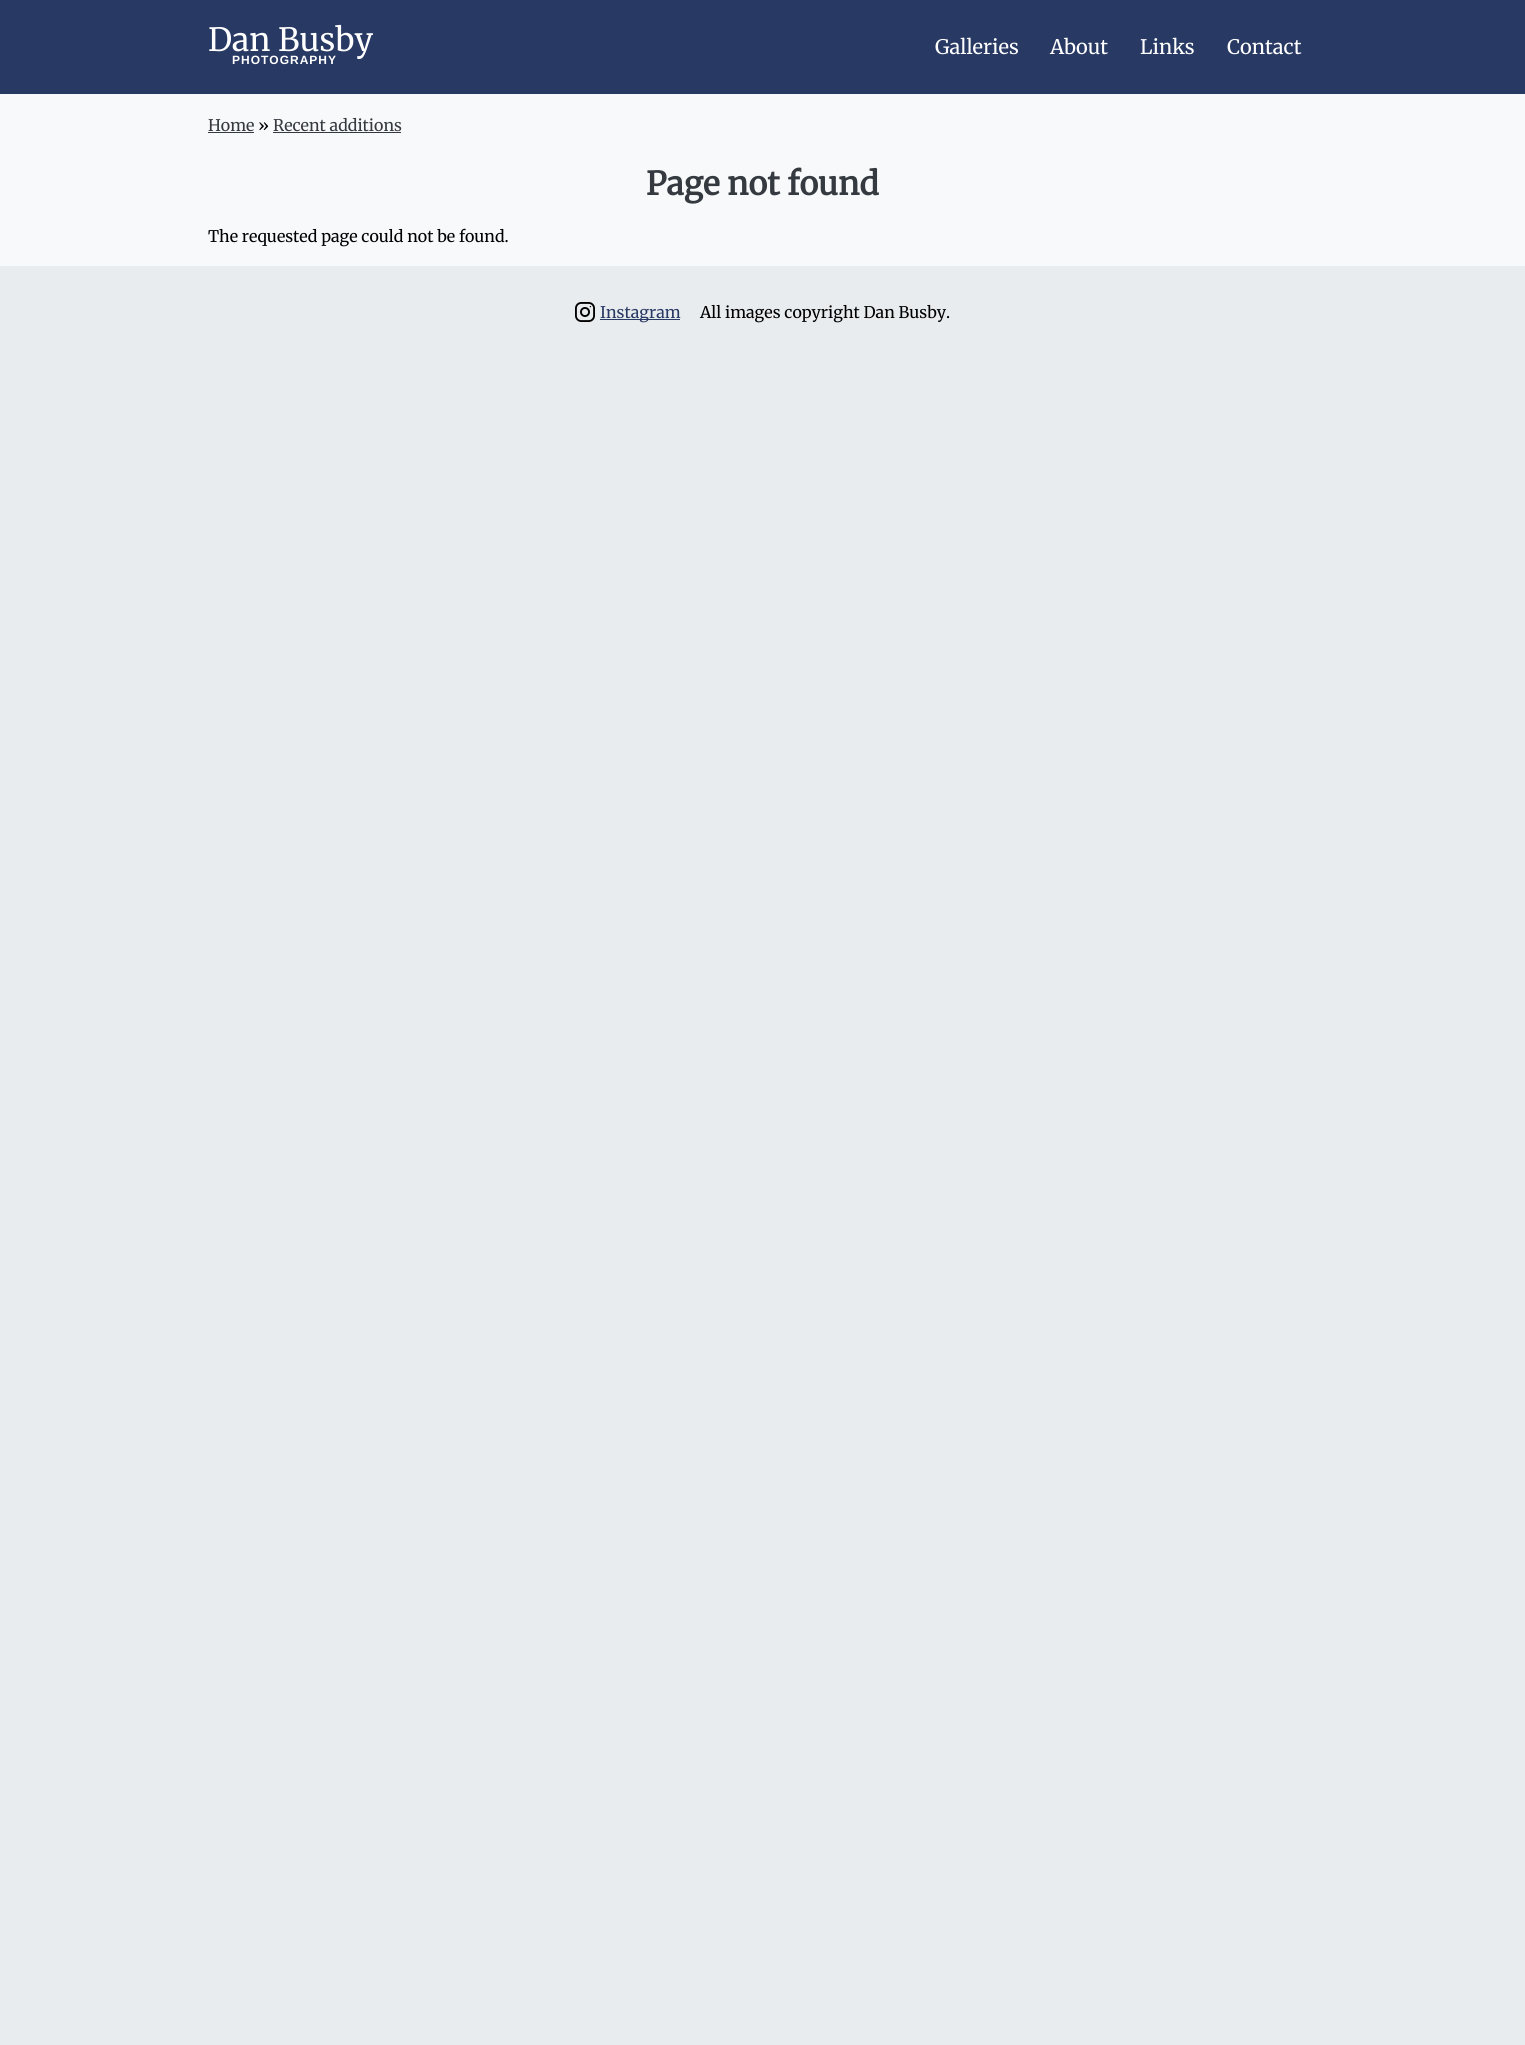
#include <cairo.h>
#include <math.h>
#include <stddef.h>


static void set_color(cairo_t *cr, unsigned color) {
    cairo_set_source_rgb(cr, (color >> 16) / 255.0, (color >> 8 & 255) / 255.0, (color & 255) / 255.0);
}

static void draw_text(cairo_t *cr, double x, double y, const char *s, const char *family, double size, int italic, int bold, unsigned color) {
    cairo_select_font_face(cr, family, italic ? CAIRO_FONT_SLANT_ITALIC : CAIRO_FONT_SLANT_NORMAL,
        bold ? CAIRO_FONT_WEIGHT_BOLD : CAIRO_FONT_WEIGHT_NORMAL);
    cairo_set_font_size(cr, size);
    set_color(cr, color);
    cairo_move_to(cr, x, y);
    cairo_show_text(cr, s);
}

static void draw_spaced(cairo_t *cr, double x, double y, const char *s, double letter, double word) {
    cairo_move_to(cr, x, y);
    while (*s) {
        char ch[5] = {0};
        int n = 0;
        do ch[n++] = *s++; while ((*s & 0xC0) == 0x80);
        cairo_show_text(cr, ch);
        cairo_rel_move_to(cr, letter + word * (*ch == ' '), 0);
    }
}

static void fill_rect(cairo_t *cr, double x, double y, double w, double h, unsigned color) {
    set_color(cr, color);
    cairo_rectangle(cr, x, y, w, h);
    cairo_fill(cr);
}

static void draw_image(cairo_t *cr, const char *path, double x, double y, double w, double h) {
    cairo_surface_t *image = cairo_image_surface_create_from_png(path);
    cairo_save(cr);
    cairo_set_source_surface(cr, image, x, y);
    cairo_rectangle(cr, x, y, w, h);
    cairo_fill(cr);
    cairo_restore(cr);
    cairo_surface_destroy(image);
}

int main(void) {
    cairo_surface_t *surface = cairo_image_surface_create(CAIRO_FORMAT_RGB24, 1525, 2045);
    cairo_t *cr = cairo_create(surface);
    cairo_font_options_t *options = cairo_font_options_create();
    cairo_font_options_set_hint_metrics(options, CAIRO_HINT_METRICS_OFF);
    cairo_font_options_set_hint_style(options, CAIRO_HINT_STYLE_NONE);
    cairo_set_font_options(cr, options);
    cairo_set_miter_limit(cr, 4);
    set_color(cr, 0xE9ECEF);
    cairo_paint(cr);
    fill_rect(cr, 0, 0, 1525, 94, 0x283964);
    draw_text(cr, 208, 51, "Dan Busby", "Merriweather Light", 32, 0, 0, 0xFFFFFF);
    cairo_select_font_face(cr, "Liberation Sans", CAIRO_FONT_SLANT_NORMAL, CAIRO_FONT_WEIGHT_BOLD);
    cairo_set_font_size(cr, 12);
    draw_spaced(cr, 232, 64, "PHOTOGRAPHY", 1, 0);
    draw_text(cr, 935, 54, "Galleries", "Merriweather Light", 20, 0, 0, 0xFFFFFF);
    draw_text(cr, 1050, 54, "About", "Merriweather Light", 20, 0, 0, 0xFFFFFF);
    draw_text(cr, 1140, 54, "Links", "Merriweather Light", 20, 0, 0, 0xFFFFFF);
    draw_text(cr, 1227, 54, "Contact", "Merriweather Light", 20, 0, 0, 0xFFFFFF);
    fill_rect(cr, 0, 94, 1525, 172, 0xF8F9FA);
    draw_text(cr, 208, 131, "Home", "Merriweather Light", 16, 0, 0, 0x343A40);
    fill_rect(cr, 208, 132, 46, 1, 0x343A40);
    draw_text(cr, 258, 131, "»", "Merriweather Light", 16, 0, 0, 0x000000);
    draw_text(cr, 273, 131, "Recent additions", "Merriweather Light", 16, 0, 0, 0x343A40);
    fill_rect(cr, 273, 132, 128, 1, 0x343A40);
    draw_text(cr, 646, 195, "Page not found", "Merriweather", 32, 0, 1, 0x343A40);
    draw_text(cr, 208, 242, "The requested page could not be found.", "Merriweather Light", 16, 0, 0, 0x000000);
    draw_image(cr, "assets/img1.png", 575, 302, 20, 20);
    fill_rect(cr, 600, 319, 80, 1, 0x283964);
    draw_text(cr, 600, 318, "Instagram", "Merriweather Light", 16, 0, 0, 0x283964);
    draw_text(cr, 700, 318, "All images copyright Dan Busby.", "Merriweather Light", 16, 0, 0, 0x000000);
    cairo_surface_write_to_png(surface, "output.png");
    cairo_font_options_destroy(options);
    cairo_destroy(cr);
    cairo_surface_destroy(surface);
    return 0;
}
